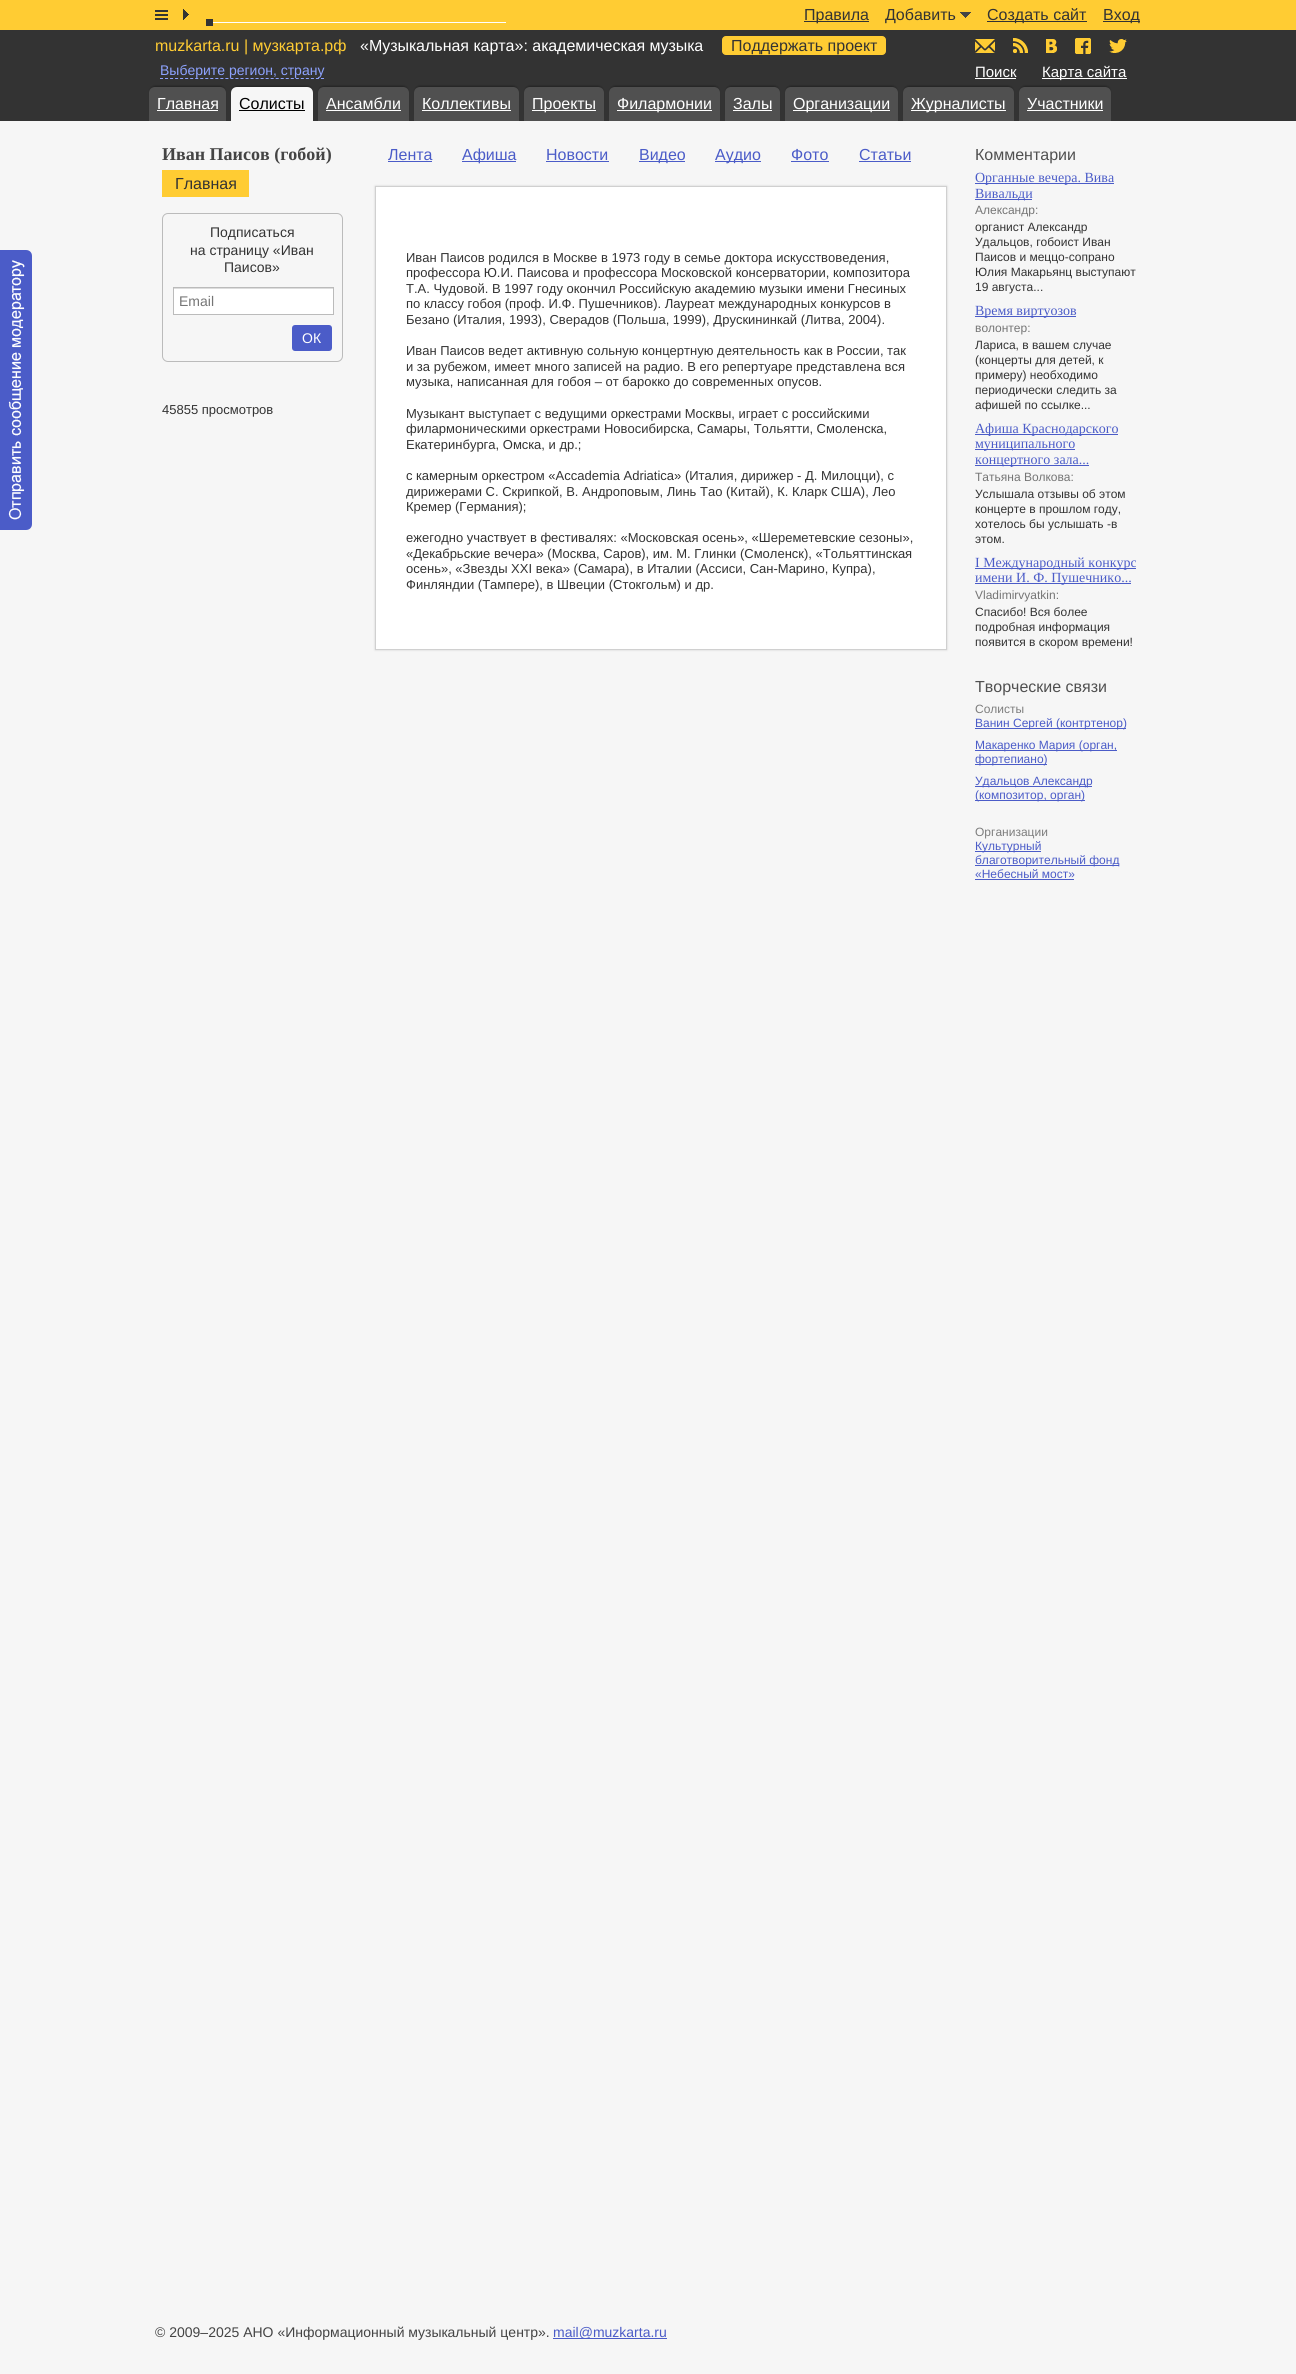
#include <cairo.h>
#include <math.h>
#include <stddef.h>


static void set_color(cairo_t *cr, unsigned color) {
    cairo_set_source_rgb(cr, (color >> 16) / 255.0, (color >> 8 & 255) / 255.0, (color & 255) / 255.0);
}

static void draw_text(cairo_t *cr, double x, double y, const char *s, const char *family, double size, int italic, int bold, unsigned color) {
    cairo_select_font_face(cr, family, italic ? CAIRO_FONT_SLANT_ITALIC : CAIRO_FONT_SLANT_NORMAL,
        bold ? CAIRO_FONT_WEIGHT_BOLD : CAIRO_FONT_WEIGHT_NORMAL);
    cairo_set_font_size(cr, size);
    set_color(cr, color);
    cairo_move_to(cr, x, y);
    cairo_show_text(cr, s);
}

static void fill_rect(cairo_t *cr, double x, double y, double w, double h, unsigned color) {
    set_color(cr, color);
    cairo_rectangle(cr, x, y, w, h);
    cairo_fill(cr);
}

static void rounded_rect(cairo_t *cr, double x, double y, double w, double h, double r) {
    cairo_new_sub_path(cr);
    cairo_arc(cr, x + w - r, y + h - r, r, 0, M_PI / 2);
    cairo_arc(cr, x + r, y + h - r, r, M_PI / 2, M_PI);
    cairo_arc(cr, x + r, y + r, r, M_PI, 1.5 * M_PI);
    cairo_arc(cr, x + w - r, y + r, r, 1.5 * M_PI, 2 * M_PI);
    cairo_close_path(cr);
}

static void draw_shadow(cairo_t *cr, double x, double y, double w, double h, double r, double blur, double alpha) {
    cairo_push_group_with_content(cr, CAIRO_CONTENT_ALPHA);
    cairo_set_operator(cr, CAIRO_OPERATOR_SOURCE);
    for (int i = 15; i >= -15 && fmin(w, h) + blur * i / 3 > 0; i -= 2) {
        double e = blur * i / 6;
        cairo_set_source_rgba(cr, 0, 0, 0, alpha * erfc((i - 1) / 8.5) / 2);
        rounded_rect(cr, x - e, y - e, w + 2 * e, h + 2 * e, fmax(0, fmin(r + e + blur * .6, fmin(w, h) / 2 + e)));
        cairo_fill(cr);
    }
    cairo_pattern_t *soft = cairo_pop_group(cr);
    cairo_mask(cr, soft);
    cairo_pattern_destroy(soft);
}

static void draw_image(cairo_t *cr, const char *path, double x, double y, double w, double h) {
    cairo_surface_t *image = cairo_image_surface_create_from_png(path);
    cairo_save(cr);
    cairo_set_source_surface(cr, image, x, y);
    cairo_rectangle(cr, x, y, w, h);
    cairo_fill(cr);
    cairo_restore(cr);
    cairo_surface_destroy(image);
}

int main(void) {
    cairo_surface_t *surface = cairo_image_surface_create(CAIRO_FORMAT_RGB24, 1296, 2374);
    cairo_t *cr = cairo_create(surface);
    cairo_font_options_t *options = cairo_font_options_create();
    cairo_font_options_set_hint_metrics(options, CAIRO_HINT_METRICS_OFF);
    cairo_font_options_set_hint_style(options, CAIRO_HINT_STYLE_NONE);
    cairo_set_font_options(cr, options);
    cairo_set_miter_limit(cr, 4);
    set_color(cr, 0xF6F6F6);
    cairo_paint(cr);
    set_color(cr, 0x4B5CC8);
    cairo_new_path(cr);
    cairo_move_to(cr, 0, 250);
    cairo_line_to(cr, 26, 250);
    cairo_curve_to(cr, 29.5, 250, 32, 252.5, 32, 256);
    cairo_line_to(cr, 32, 524);
    cairo_curve_to(cr, 32, 527.5, 29.5, 530, 26, 530);
    cairo_line_to(cr, 0, 530);
    cairo_close_path(cr);
    cairo_fill(cr);
    draw_image(cr, "assets/img1.png", 8, 260, 17, 260);
    fill_rect(cr, 0, 0, 1296, 30, 0xFFCC33);
    draw_image(cr, "assets/img2.png", 155, 10, 13, 10);
    draw_image(cr, "assets/img3.png", 183, 9, 6, 11);
    fill_rect(cr, 804, 21, 65, 1, 0x333333);
    draw_text(cr, 804, 20, "Правила", "Liberation Sans", 16, 0, 0, 0x333333);
    draw_text(cr, 885, 20, "Добавить", "Liberation Sans", 16, 0, 0, 0x333333);
    draw_image(cr, "assets/img4.png", 960, 12, 11, 6);
    fill_rect(cr, 987, 21, 100, 1, 0x333333);
    draw_text(cr, 987, 20, "Создать сайт", "Liberation Sans", 16, 0, 0, 0x333333);
    fill_rect(cr, 1103, 21, 37, 1, 0x333333);
    draw_text(cr, 1103, 20, "Вход", "Liberation Sans", 16, 0, 0, 0x333333);
    fill_rect(cr, 206, 22, 300, 1, 0xFFFFFF);
    fill_rect(cr, 206, 19, 7, 7, 0x333333);
    fill_rect(cr, 0, 30, 1296, 91, 0x333333);
    draw_text(cr, 155, 51, "muzkarta.ru | музкарта.рф", "Liberation Sans", 16, 0, 0, 0xFFCC33);
    draw_text(cr, 360, 51, "«Музыкальная карта»: академическая музыка", "Liberation Sans", 16, 0, 0, 0xFFFFFF);
    set_color(cr, 0xFFCC33);
    rounded_rect(cr, 722.5, 36.5, 163, 18, 3.5);
    cairo_fill_preserve(cr);
    cairo_set_line_width(cr, 1);
    cairo_stroke(cr);
    draw_text(cr, 731, 51, "Поддержать проект", "Liberation Sans", 16, 0, 0, 0x333333);
    draw_image(cr, "assets/img5.png", 975, 39, 20, 14);
    draw_image(cr, "assets/img6.png", 1013, 38, 15, 15);
    draw_image(cr, "assets/img7.png", 1046, 39, 11, 14);
    draw_image(cr, "assets/img8.png", 1075, 38, 16, 16);
    draw_image(cr, "assets/img9.png", 1109, 39, 18, 14);
    draw_text(cr, 160, 75, "Выберите регион, страну", "Liberation Sans", 14, 0, 0, 0x8DA2FE);
    cairo_new_path(cr);
    cairo_move_to(cr, 160, 78.5);
    cairo_line_to(cr, 324, 78.5);
    cairo_set_dash(cr, (double[]){3, 2.03}, 2, 0);
    cairo_stroke(cr);
    draw_text(cr, 975, 77, "Поиск", "Liberation Sans", 15, 0, 0, 0xFFFFFF);
    fill_rect(cr, 975, 78, 41, 1, 0xFFFFFF);
    fill_rect(cr, 1042, 78, 85, 1, 0xFFFFFF);
    draw_text(cr, 1042, 77, "Карта сайта", "Liberation Sans", 15, 0, 0, 0xFFFFFF);
    set_color(cr, 0x222222);
    draw_shadow(cr, 150, 86, 75, 32, 5, 1, 1);
    set_color(cr, 0x505050);
    cairo_new_path(cr);
    cairo_move_to(cr, 155, 87);
    cairo_line_to(cr, 220, 87);
    cairo_curve_to(cr, 223.5, 87, 226, 89.5, 226, 93);
    cairo_line_to(cr, 226, 121);
    cairo_line_to(cr, 149, 121);
    cairo_line_to(cr, 149, 93);
    cairo_curve_to(cr, 149, 89.5, 151.5, 87, 155, 87);
    cairo_close_path(cr);
    cairo_fill(cr);
    draw_text(cr, 157, 109, "Главная", "Liberation Sans", 16, 0, 0, 0xFFFFFF);
    fill_rect(cr, 157, 110, 61, 1, 0xFFFFFF);
    set_color(cr, 0x222222);
    draw_shadow(cr, 232, 86, 80, 32, 5, 1, 1);
    set_color(cr, 0xF6F6F6);
    cairo_new_path(cr);
    cairo_move_to(cr, 237, 87);
    cairo_line_to(cr, 307, 87);
    cairo_curve_to(cr, 310.5, 87, 313, 89.5, 313, 93);
    cairo_line_to(cr, 313, 121);
    cairo_line_to(cr, 231, 121);
    cairo_line_to(cr, 231, 93);
    cairo_curve_to(cr, 231, 89.5, 233.5, 87, 237, 87);
    cairo_close_path(cr);
    cairo_fill(cr);
    draw_text(cr, 239, 109, "Солисты", "Liberation Sans", 16, 0, 0, 0x000000);
    fill_rect(cr, 239, 110, 66, 1, 0x000000);
    set_color(cr, 0x222222);
    draw_shadow(cr, 319, 86, 89, 32, 5, 1, 1);
    set_color(cr, 0x505050);
    cairo_new_path(cr);
    cairo_move_to(cr, 324, 87);
    cairo_line_to(cr, 403, 87);
    cairo_curve_to(cr, 406.5, 87, 409, 89.5, 409, 93);
    cairo_line_to(cr, 409, 121);
    cairo_line_to(cr, 318, 121);
    cairo_line_to(cr, 318, 93);
    cairo_curve_to(cr, 318, 89.5, 320.5, 87, 324, 87);
    cairo_close_path(cr);
    cairo_fill(cr);
    draw_text(cr, 326, 109, "Ансамбли", "Liberation Sans", 16, 0, 0, 0xFFFFFF);
    fill_rect(cr, 326, 110, 75, 1, 0xFFFFFF);
    set_color(cr, 0x222222);
    draw_shadow(cr, 415, 86, 103, 32, 5, 1, 1);
    set_color(cr, 0x505050);
    cairo_new_path(cr);
    cairo_move_to(cr, 420, 87);
    cairo_line_to(cr, 513, 87);
    cairo_curve_to(cr, 516.5, 87, 519, 89.5, 519, 93);
    cairo_line_to(cr, 519, 121);
    cairo_line_to(cr, 414, 121);
    cairo_line_to(cr, 414, 93);
    cairo_curve_to(cr, 414, 89.5, 416.5, 87, 420, 87);
    cairo_close_path(cr);
    cairo_fill(cr);
    draw_text(cr, 422, 109, "Коллективы", "Liberation Sans", 16, 0, 0, 0xFFFFFF);
    fill_rect(cr, 422, 110, 89, 1, 0xFFFFFF);
    set_color(cr, 0x222222);
    draw_shadow(cr, 525, 86, 78, 32, 5, 1, 1);
    set_color(cr, 0x505050);
    cairo_new_path(cr);
    cairo_move_to(cr, 530, 87);
    cairo_line_to(cr, 598, 87);
    cairo_curve_to(cr, 601.5, 87, 604, 89.5, 604, 93);
    cairo_line_to(cr, 604, 121);
    cairo_line_to(cr, 524, 121);
    cairo_line_to(cr, 524, 93);
    cairo_curve_to(cr, 524, 89.5, 526.5, 87, 530, 87);
    cairo_close_path(cr);
    cairo_fill(cr);
    fill_rect(cr, 532, 110, 64, 1, 0xFFFFFF);
    draw_text(cr, 532, 109, "Проекты", "Liberation Sans", 16, 0, 0, 0xFFFFFF);
    set_color(cr, 0x222222);
    draw_shadow(cr, 610, 86, 109, 32, 5, 1, 1);
    set_color(cr, 0x505050);
    cairo_new_path(cr);
    cairo_move_to(cr, 615, 87);
    cairo_line_to(cr, 714, 87);
    cairo_curve_to(cr, 717.5, 87, 720, 89.5, 720, 93);
    cairo_line_to(cr, 720, 121);
    cairo_line_to(cr, 609, 121);
    cairo_line_to(cr, 609, 93);
    cairo_curve_to(cr, 609, 89.5, 611.5, 87, 615, 87);
    cairo_close_path(cr);
    cairo_fill(cr);
    fill_rect(cr, 617, 110, 95, 1, 0xFFFFFF);
    draw_text(cr, 617, 109, "Филармонии", "Liberation Sans", 16, 0, 0, 0xFFFFFF);
    set_color(cr, 0x222222);
    draw_shadow(cr, 726, 86, 53, 32, 5, 1, 1);
    set_color(cr, 0x505050);
    cairo_new_path(cr);
    cairo_move_to(cr, 731, 87);
    cairo_line_to(cr, 774, 87);
    cairo_curve_to(cr, 777.5, 87, 780, 89.5, 780, 93);
    cairo_line_to(cr, 780, 121);
    cairo_line_to(cr, 725, 121);
    cairo_line_to(cr, 725, 93);
    cairo_curve_to(cr, 725, 89.5, 727.5, 87, 731, 87);
    cairo_close_path(cr);
    cairo_fill(cr);
    draw_text(cr, 733, 109, "Залы", "Liberation Sans", 16, 0, 0, 0xFFFFFF);
    fill_rect(cr, 733, 110, 39, 1, 0xFFFFFF);
    set_color(cr, 0x222222);
    draw_shadow(cr, 786, 86, 111, 32, 5, 1, 1);
    set_color(cr, 0x505050);
    cairo_new_path(cr);
    cairo_move_to(cr, 791, 87);
    cairo_line_to(cr, 892, 87);
    cairo_curve_to(cr, 895.5, 87, 898, 89.5, 898, 93);
    cairo_line_to(cr, 898, 121);
    cairo_line_to(cr, 785, 121);
    cairo_line_to(cr, 785, 93);
    cairo_curve_to(cr, 785, 89.5, 787.5, 87, 791, 87);
    cairo_close_path(cr);
    cairo_fill(cr);
    fill_rect(cr, 793, 110, 97, 1, 0xFFFFFF);
    draw_text(cr, 793, 109, "Организации", "Liberation Sans", 16, 0, 0, 0xFFFFFF);
    set_color(cr, 0x222222);
    draw_shadow(cr, 904, 86, 109, 32, 5, 1, 1);
    set_color(cr, 0x505050);
    cairo_new_path(cr);
    cairo_move_to(cr, 909, 87);
    cairo_line_to(cr, 1008, 87);
    cairo_curve_to(cr, 1011.5, 87, 1014, 89.5, 1014, 93);
    cairo_line_to(cr, 1014, 121);
    cairo_line_to(cr, 903, 121);
    cairo_line_to(cr, 903, 93);
    cairo_curve_to(cr, 903, 89.5, 905.5, 87, 909, 87);
    cairo_close_path(cr);
    cairo_fill(cr);
    fill_rect(cr, 911, 110, 95, 1, 0xFFFFFF);
    draw_text(cr, 911, 109, "Журналисты", "Liberation Sans", 16, 0, 0, 0xFFFFFF);
    set_color(cr, 0x222222);
    draw_shadow(cr, 1020, 86, 90, 32, 5, 1, 1);
    set_color(cr, 0x505050);
    cairo_new_path(cr);
    cairo_move_to(cr, 1025, 87);
    cairo_line_to(cr, 1105, 87);
    cairo_curve_to(cr, 1108.5, 87, 1111, 89.5, 1111, 93);
    cairo_line_to(cr, 1111, 121);
    cairo_line_to(cr, 1019, 121);
    cairo_line_to(cr, 1019, 93);
    cairo_curve_to(cr, 1019, 89.5, 1021.5, 87, 1025, 87);
    cairo_close_path(cr);
    cairo_fill(cr);
    draw_text(cr, 1027, 109, "Участники", "Liberation Sans", 16, 0, 0, 0xFFFFFF);
    fill_rect(cr, 1027, 110, 76, 1, 0xFFFFFF);
    draw_text(cr, 162, 160, "Иван Паисов (гобой)", "Liberation Serif", 18, 0, 1, 0x444444);
    fill_rect(cr, 162, 170, 87, 27, 0xFFCC33);
    draw_text(cr, 175, 189, "Главная", "Liberation Sans", 16, 0, 0, 0x333333);
    rounded_rect(cr, 162.5, 213.5, 180, 148, 5.5);
    set_color(cr, 0xBBBBBB);
    cairo_set_dash(cr, NULL, 0, 0);
    cairo_stroke(cr);
    draw_text(cr, 210, 237, "Подписаться", "Liberation Sans", 14, 0, 0, 0x333333);
    draw_text(cr, 190, 255, "на страницу «Иван", "Liberation Sans", 14, 0, 0, 0x333333);
    draw_text(cr, 224, 272, "Паисов»", "Liberation Sans", 14, 0, 0, 0x333333);
    fill_rect(cr, 174, 289, 159, 25, 0xFFFFFF);
    fill_rect(cr, 174, 288, 159, 1, 0xDDDDDD);
    cairo_rectangle(cr, 173.5, 287.5, 160, 27);
    set_color(cr, 0xBBBBBB);
    cairo_stroke(cr);
    draw_text(cr, 179, 306, "Email", "Liberation Sans", 14, 0, 0, 0x757575);
    set_color(cr, 0x4B5CC8);
    rounded_rect(cr, 292, 325, 40, 26, 3);
    cairo_fill(cr);
    draw_text(cr, 302, 343, "ОК", "Liberation Sans", 14, 0, 0, 0xFFFFFF);
    draw_text(cr, 162, 414, "45855 просмотров", "Liberation Sans", 13, 0, 0, 0x333333);
    draw_text(cr, 388, 160, "Лента", "Liberation Sans", 16, 0, 0, 0x4B5CC8);
    fill_rect(cr, 388, 161, 44, 1, 0x4B5CC8);
    fill_rect(cr, 462, 161, 54, 1, 0x4B5CC8);
    draw_text(cr, 462, 160, "Афиша", "Liberation Sans", 16, 0, 0, 0x4B5CC8);
    draw_text(cr, 546, 160, "Новости", "Liberation Sans", 16, 0, 0, 0x4B5CC8);
    fill_rect(cr, 546, 161, 63, 1, 0x4B5CC8);
    fill_rect(cr, 639, 161, 46, 1, 0x4B5CC8);
    draw_text(cr, 639, 160, "Видео", "Liberation Sans", 16, 0, 0, 0x4B5CC8);
    fill_rect(cr, 715, 161, 46, 1, 0x4B5CC8);
    draw_text(cr, 715, 160, "Аудио", "Liberation Sans", 16, 0, 0, 0x4B5CC8);
    draw_text(cr, 791, 160, "Фото", "Liberation Sans", 16, 0, 0, 0x4B5CC8);
    fill_rect(cr, 791, 161, 38, 1, 0x4B5CC8);
    draw_text(cr, 859, 160, "Статьи", "Liberation Sans", 16, 0, 0, 0x4B5CC8);
    fill_rect(cr, 859, 161, 52, 1, 0x4B5CC8);
    set_color(cr, 0xD0D0D0);
    draw_shadow(cr, 375, 186, 572, 464, 0, 1, 1);
    set_color(cr, 0xFFFFFF);
    cairo_rectangle(cr, 375.5, 186.5, 571, 463);
    cairo_fill_preserve(cr);
    set_color(cr, 0xD0D0D0);
    cairo_stroke(cr);
    draw_text(cr, 406, 262, "Иван Паисов родился в Москве в 1973 году в семье доктора искусствоведения,", "Liberation Sans", 13, 0, 0, 0x333333);
    draw_text(cr, 406, 277, "профессора Ю.И. Паисова и профессора Московской консерватории, композитора", "Liberation Sans", 13, 0, 0, 0x333333);
    draw_text(cr, 406, 293, "Т.А. Чудовой. В 1997 году окончил Российскую академию музыки имени Гнесиных", "Liberation Sans", 13, 0, 0, 0x333333);
    draw_text(cr, 406, 308, "по классу гобоя (проф. И.Ф. Пушечников). Лауреат международных конкурсов в", "Liberation Sans", 13, 0, 0, 0x333333);
    draw_text(cr, 406, 324, "Безано (Италия, 1993), Сверадов (Польша, 1999), Друскининкай (Литва, 2004).", "Liberation Sans", 13, 0, 0, 0x333333);
    draw_text(cr, 406, 355, "Иван Паисов ведет активную сольную концертную деятельность как в России, так", "Liberation Sans", 13, 0, 0, 0x333333);
    draw_text(cr, 406, 371, "и за рубежом, имеет много записей на радио. В его репертуаре представлена вся", "Liberation Sans", 13, 0, 0, 0x333333);
    draw_text(cr, 406, 386, "музыка, написанная для гобоя – от барокко до современных опусов.", "Liberation Sans", 13, 0, 0, 0x333333);
    draw_text(cr, 406, 418, "Музыкант выступает с ведущими оркестрами Москвы, играет с российскими", "Liberation Sans", 13, 0, 0, 0x333333);
    draw_text(cr, 406, 433, "филармоническими оркестрами Новосибирска, Самары, Тольятти, Смоленска,", "Liberation Sans", 13, 0, 0, 0x333333);
    draw_text(cr, 406, 449, "Екатеринбурга, Омска, и др.;", "Liberation Sans", 13, 0, 0, 0x333333);
    draw_text(cr, 406, 480, "с камерным оркестром «Accademia Adriatica» (Италия, дирижер - Д. Милоцци), с", "Liberation Sans", 13, 0, 0, 0x333333);
    draw_text(cr, 406, 496, "дирижерами С. Скрипкой, В. Андроповым, Линь Тао (Китай), К. Кларк США), Лео", "Liberation Sans", 13, 0, 0, 0x333333);
    draw_text(cr, 406, 511, "Кремер (Германия);", "Liberation Sans", 13, 0, 0, 0x333333);
    draw_text(cr, 406, 542, "ежегодно участвует в фестивалях: «Московская осень», «Шереметевские сезоны»,", "Liberation Sans", 13, 0, 0, 0x333333);
    draw_text(cr, 406, 558, "«Декабрьские вечера» (Москва, Саров), им. М. Глинки (Смоленск), «Тольяттинская", "Liberation Sans", 13, 0, 0, 0x333333);
    draw_text(cr, 406, 573, "осень», «Звезды XXI века» (Самара), в Италии (Ассиси, Сан-Марино, Купра),", "Liberation Sans", 13, 0, 0, 0x333333);
    draw_text(cr, 406, 589, "Финляндии (Тампере), в Швеции (Стокгольм) и др.", "Liberation Sans", 13, 0, 0, 0x333333);
    draw_text(cr, 975, 160, "Комментарии", "Liberation Sans", 16, 0, 0, 0x505050);
    fill_rect(cr, 975, 183, 139, 1, 0x4B5CC8);
    draw_text(cr, 975, 182, "Органные вечера. Вива", "Liberation Serif", 14, 0, 0, 0x4B5CC8);
    fill_rect(cr, 975, 199, 57, 1, 0x4B5CC8);
    draw_text(cr, 975, 198, "Вивальди", "Liberation Serif", 14, 0, 0, 0x4B5CC8);
    draw_text(cr, 975, 214, "Александр:", "Liberation Sans", 12, 0, 0, 0x757575);
    draw_text(cr, 975, 231, "органист Александр", "Liberation Sans", 12, 0, 0, 0x333333);
    draw_text(cr, 975, 246, "Удальцов, гобоист Иван", "Liberation Sans", 12, 0, 0, 0x333333);
    draw_text(cr, 975, 261, "Паисов и меццо-сопрано", "Liberation Sans", 12, 0, 0, 0x333333);
    draw_text(cr, 975, 276, "Юлия Макарьянц выступают", "Liberation Sans", 12, 0, 0, 0x333333);
    draw_text(cr, 975, 291, "19 августа...", "Liberation Sans", 12, 0, 0, 0x333333);
    fill_rect(cr, 975, 316, 101, 1, 0x4B5CC8);
    draw_text(cr, 975, 315, "Время виртуозов", "Liberation Serif", 14, 0, 0, 0x4B5CC8);
    draw_text(cr, 975, 332, "волонтер:", "Liberation Sans", 12, 0, 0, 0x757575);
    draw_text(cr, 975, 349, "Лариса, в вашем случае", "Liberation Sans", 12, 0, 0, 0x333333);
    draw_text(cr, 975, 364, "(концерты для детей, к", "Liberation Sans", 12, 0, 0, 0x333333);
    draw_text(cr, 975, 379, "примеру) необходимо", "Liberation Sans", 12, 0, 0, 0x333333);
    draw_text(cr, 975, 394, "периодически следить за", "Liberation Sans", 12, 0, 0, 0x333333);
    draw_text(cr, 975, 409, "афишей по ссылке...", "Liberation Sans", 12, 0, 0, 0x333333);
    fill_rect(cr, 975, 434, 143, 1, 0x4B5CC8);
    draw_text(cr, 975, 433, "Афиша Краснодарского", "Liberation Serif", 14, 0, 0, 0x4B5CC8);
    fill_rect(cr, 975, 449, 100, 1, 0x4B5CC8);
    draw_text(cr, 975, 448, "муниципального", "Liberation Serif", 14, 0, 0, 0x4B5CC8);
    fill_rect(cr, 975, 465, 114, 1, 0x4B5CC8);
    draw_text(cr, 975, 464, "концертного зала...", "Liberation Serif", 14, 0, 0, 0x4B5CC8);
    draw_text(cr, 975, 481, "Татьяна Волкова:", "Liberation Sans", 12, 0, 0, 0x757575);
    draw_text(cr, 975, 498, "Услышала отзывы об этом", "Liberation Sans", 12, 0, 0, 0x333333);
    draw_text(cr, 975, 513, "концерте в прошлом году,", "Liberation Sans", 12, 0, 0, 0x333333);
    draw_text(cr, 975, 528, "хотелось бы услышать -в", "Liberation Sans", 12, 0, 0, 0x333333);
    draw_text(cr, 975, 543, "этом.", "Liberation Sans", 12, 0, 0, 0x333333);
    fill_rect(cr, 975, 568, 161, 1, 0x4B5CC8);
    draw_text(cr, 975, 567, "I Международный конкурс", "Liberation Serif", 14, 0, 0, 0x4B5CC8);
    fill_rect(cr, 975, 583, 156, 1, 0x4B5CC8);
    draw_text(cr, 975, 582, "имени И. Ф. Пушечнико...", "Liberation Serif", 14, 0, 0, 0x4B5CC8);
    draw_text(cr, 975, 599, "Vladimirvyatkin:", "Liberation Sans", 12, 0, 0, 0x757575);
    draw_text(cr, 975, 616, "Спасибо! Вся более", "Liberation Sans", 12, 0, 0, 0x333333);
    draw_text(cr, 975, 631, "подробная информация", "Liberation Sans", 12, 0, 0, 0x333333);
    draw_text(cr, 975, 646, "появится в скором времени!", "Liberation Sans", 12, 0, 0, 0x333333);
    draw_text(cr, 975, 692, "Творческие связи", "Liberation Sans", 16, 0, 0, 0x505050);
    draw_text(cr, 975, 713, "Солисты", "Liberation Sans", 12, 0, 0, 0x7D7D7D);
    fill_rect(cr, 975, 728, 151, 1, 0x4B5CC8);
    draw_text(cr, 975, 727, "Ванин Сергей (контртенор)", "Liberation Sans", 12, 0, 0, 0x4B5CC8);
    fill_rect(cr, 975, 750, 142, 1, 0x4B5CC8);
    draw_text(cr, 975, 749, "Макаренко Мария (орган,", "Liberation Sans", 12, 0, 0, 0x4B5CC8);
    fill_rect(cr, 975, 764, 72, 1, 0x4B5CC8);
    draw_text(cr, 975, 763, "фортепиано)", "Liberation Sans", 12, 0, 0, 0x4B5CC8);
    fill_rect(cr, 975, 786, 117, 1, 0x4B5CC8);
    draw_text(cr, 975, 785, "Удальцов Александр", "Liberation Sans", 12, 0, 0, 0x4B5CC8);
    fill_rect(cr, 975, 800, 110, 1, 0x4B5CC8);
    draw_text(cr, 975, 799, "(композитор, орган)", "Liberation Sans", 12, 0, 0, 0x4B5CC8);
    draw_text(cr, 975, 836, "Организации", "Liberation Sans", 12, 0, 0, 0x7D7D7D);
    fill_rect(cr, 975, 851, 66, 1, 0x4B5CC8);
    draw_text(cr, 975, 850, "Культурный", "Liberation Sans", 12, 0, 0, 0x4B5CC8);
    fill_rect(cr, 975, 865, 144, 1, 0x4B5CC8);
    draw_text(cr, 975, 864, "благотворительный фонд", "Liberation Sans", 12, 0, 0, 0x4B5CC8);
    draw_text(cr, 975, 878, "«Небесный мост»", "Liberation Sans", 12, 0, 0, 0x4B5CC8);
    fill_rect(cr, 975, 879, 99, 1, 0x4B5CC8);
    draw_text(cr, 155, 2337, "© 2009–2025 АНО «Информационный музыкальный центр».", "Liberation Sans", 14, 0, 0, 0x444444);
    fill_rect(cr, 553, 2338, 114, 1, 0x4B5CC8);
    draw_text(cr, 553, 2337, "mail@muzkarta.ru", "Liberation Sans", 14, 0, 0, 0x4B5CC8);
    cairo_surface_write_to_png(surface, "output.png");
    cairo_font_options_destroy(options);
    cairo_destroy(cr);
    cairo_surface_destroy(surface);
    return 0;
}
